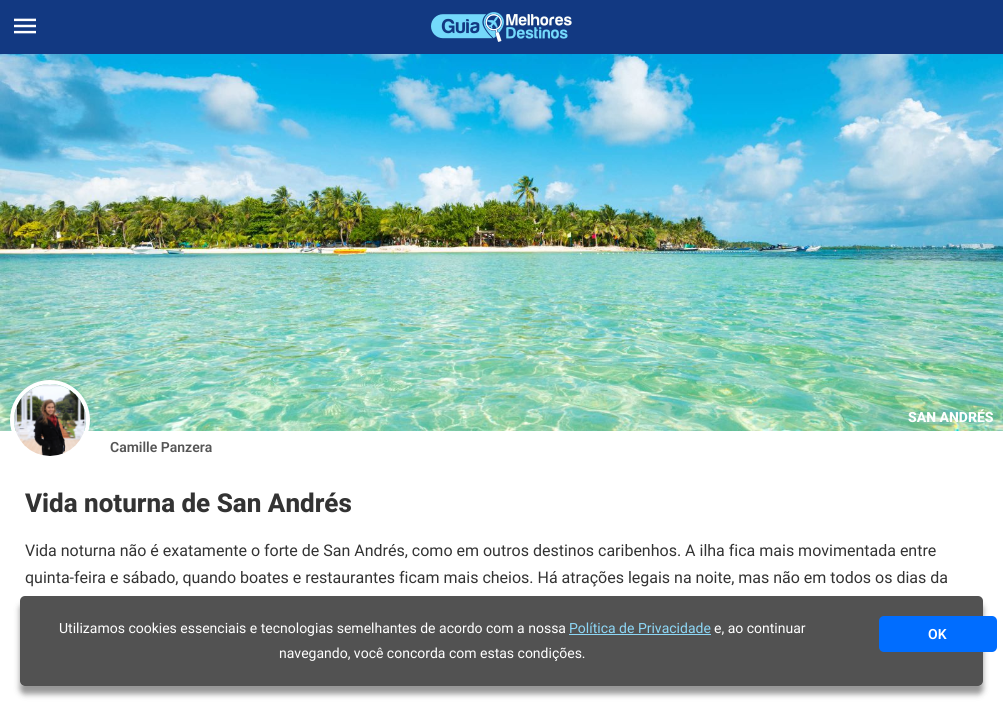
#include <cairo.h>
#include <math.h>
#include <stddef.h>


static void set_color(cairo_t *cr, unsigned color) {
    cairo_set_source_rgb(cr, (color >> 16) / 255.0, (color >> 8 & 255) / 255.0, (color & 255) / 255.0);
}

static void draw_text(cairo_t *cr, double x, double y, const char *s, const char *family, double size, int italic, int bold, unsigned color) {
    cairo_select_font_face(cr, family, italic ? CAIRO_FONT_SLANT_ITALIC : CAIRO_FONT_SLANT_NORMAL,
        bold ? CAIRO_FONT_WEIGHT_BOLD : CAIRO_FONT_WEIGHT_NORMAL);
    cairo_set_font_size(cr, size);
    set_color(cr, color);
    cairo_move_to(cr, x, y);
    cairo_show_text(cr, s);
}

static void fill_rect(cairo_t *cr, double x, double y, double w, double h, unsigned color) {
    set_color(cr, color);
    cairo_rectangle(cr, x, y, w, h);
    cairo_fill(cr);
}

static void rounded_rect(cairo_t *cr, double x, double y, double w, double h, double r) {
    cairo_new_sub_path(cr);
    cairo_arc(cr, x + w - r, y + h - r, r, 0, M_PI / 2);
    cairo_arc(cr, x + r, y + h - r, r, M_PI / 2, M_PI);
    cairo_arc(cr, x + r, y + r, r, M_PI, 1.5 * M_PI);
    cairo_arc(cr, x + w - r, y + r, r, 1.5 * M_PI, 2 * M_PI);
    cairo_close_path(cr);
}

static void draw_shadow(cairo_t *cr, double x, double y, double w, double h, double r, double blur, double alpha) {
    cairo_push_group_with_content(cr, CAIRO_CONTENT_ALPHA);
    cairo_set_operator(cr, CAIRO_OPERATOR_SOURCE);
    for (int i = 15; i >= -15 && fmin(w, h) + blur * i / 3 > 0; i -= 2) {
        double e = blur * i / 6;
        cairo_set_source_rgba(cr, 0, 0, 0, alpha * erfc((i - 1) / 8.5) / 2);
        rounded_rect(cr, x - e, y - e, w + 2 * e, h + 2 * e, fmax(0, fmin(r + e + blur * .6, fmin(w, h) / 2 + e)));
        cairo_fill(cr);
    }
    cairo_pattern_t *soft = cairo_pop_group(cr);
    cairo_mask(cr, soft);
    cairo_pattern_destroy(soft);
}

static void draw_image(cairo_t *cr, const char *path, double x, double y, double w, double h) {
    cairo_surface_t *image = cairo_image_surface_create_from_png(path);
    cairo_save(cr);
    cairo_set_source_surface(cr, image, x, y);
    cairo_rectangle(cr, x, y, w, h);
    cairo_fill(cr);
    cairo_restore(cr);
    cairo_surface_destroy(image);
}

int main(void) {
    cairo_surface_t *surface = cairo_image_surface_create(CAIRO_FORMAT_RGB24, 1003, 706);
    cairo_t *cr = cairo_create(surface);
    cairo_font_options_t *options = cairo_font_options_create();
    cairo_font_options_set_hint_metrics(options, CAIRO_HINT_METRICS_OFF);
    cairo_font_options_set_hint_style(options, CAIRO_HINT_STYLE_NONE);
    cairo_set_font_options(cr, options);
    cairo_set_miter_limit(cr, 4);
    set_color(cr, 0xFFFFFF);
    cairo_paint(cr);
    fill_rect(cr, 0, 0, 1003, 54, 0x123982);
    draw_image(cr, "assets/img1.png", 14, 18, 22, 16);
    draw_image(cr, "assets/img2.png", 431, 12, 141, 30);
    draw_image(cr, "assets/img3.png", 0, 54, 1003, 377);
    draw_text(cr, 908, 422, "SAN ANDRÉS", "Roboto ExtraBold", 14, 0, 0, 0xFFFFFF);
    cairo_new_path(cr);
    cairo_arc(cr, 50, 420, 38, 0, 2 * M_PI);
    cairo_set_line_width(cr, 4);
    cairo_stroke(cr);
    draw_image(cr, "assets/img4.png", 14, 384, 72, 72);
    draw_text(cr, 110, 452, "Camille Panzera", "Roboto SemiBold", 14, 0, 0, 0x555555);
    draw_text(cr, 25, 512, "Vida noturna de San Andrés", "Roboto ExtraBold", 26, 0, 0, 0x333333);
    draw_text(cr, 25, 556, "Vida noturna não é exatamente o forte de San Andrés, como em outros destinos caribenhos. A ilha fica mais movimentada entre", "Roboto", 16, 0, 0, 0x333333);
    draw_text(cr, 25, 583, "quinta-feira e sábado, quando boates e restaurantes ficam mais cheios. Há atrações legais na noite, mas não em todos os dias da", "Roboto", 16, 0, 0, 0x333333);
    cairo_save(cr);
    cairo_set_fill_rule(cr, CAIRO_FILL_RULE_EVEN_ODD);
    cairo_new_path(cr);
    cairo_move_to(cr, 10, 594);
    cairo_line_to(cr, 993, 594);
    cairo_line_to(cr, 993, 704);
    cairo_line_to(cr, 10, 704);
    cairo_close_path(cr);
    cairo_move_to(cr, 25, 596);
    cairo_line_to(cr, 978, 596);
    cairo_curve_to(cr, 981, 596, 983, 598, 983, 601);
    cairo_line_to(cr, 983, 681);
    cairo_curve_to(cr, 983, 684, 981, 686, 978, 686);
    cairo_line_to(cr, 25, 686);
    cairo_curve_to(cr, 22, 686, 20, 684, 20, 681);
    cairo_line_to(cr, 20, 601);
    cairo_curve_to(cr, 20, 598, 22, 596, 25, 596);
    cairo_close_path(cr);
    cairo_clip(cr);
    set_color(cr, 0x000000);
    draw_shadow(cr, 20, 604, 963, 90, 5, 3, 0.41);
    cairo_restore(cr);
    cairo_set_source_rgba(cr, 0.251, 0.251, 0.251, 0.9);
    rounded_rect(cr, 20, 596, 963, 90, 5);
    cairo_fill(cr);
    draw_text(cr, 59, 633, "Utilizamos cookies essenciais e tecnologias semelhantes de acordo com a nossa", "Roboto", 14, 0, 0, 0xFFFFFF);
    draw_text(cr, 569, 633, "Política de Privacidade", "Roboto", 14, 0, 0, 0x8DD7F6);
    fill_rect(cr, 569, 634, 142, 1, 0x8DD7F6);
    draw_text(cr, 714, 633, "e, ao continuar", "Roboto", 14, 0, 0, 0xFFFFFF);
    draw_text(cr, 279, 658, "navegando, você concorda com estas condições.", "Roboto", 14, 0, 0, 0xFFFFFF);
    set_color(cr, 0x006DFF);
    rounded_rect(cr, 879, 616, 118, 36, 5);
    cairo_fill(cr);
    draw_text(cr, 928, 639, "OK", "Roboto SemiBold", 14, 0, 0, 0xFFFFFF);
    cairo_surface_write_to_png(surface, "output.png");
    cairo_font_options_destroy(options);
    cairo_destroy(cr);
    cairo_surface_destroy(surface);
    return 0;
}
